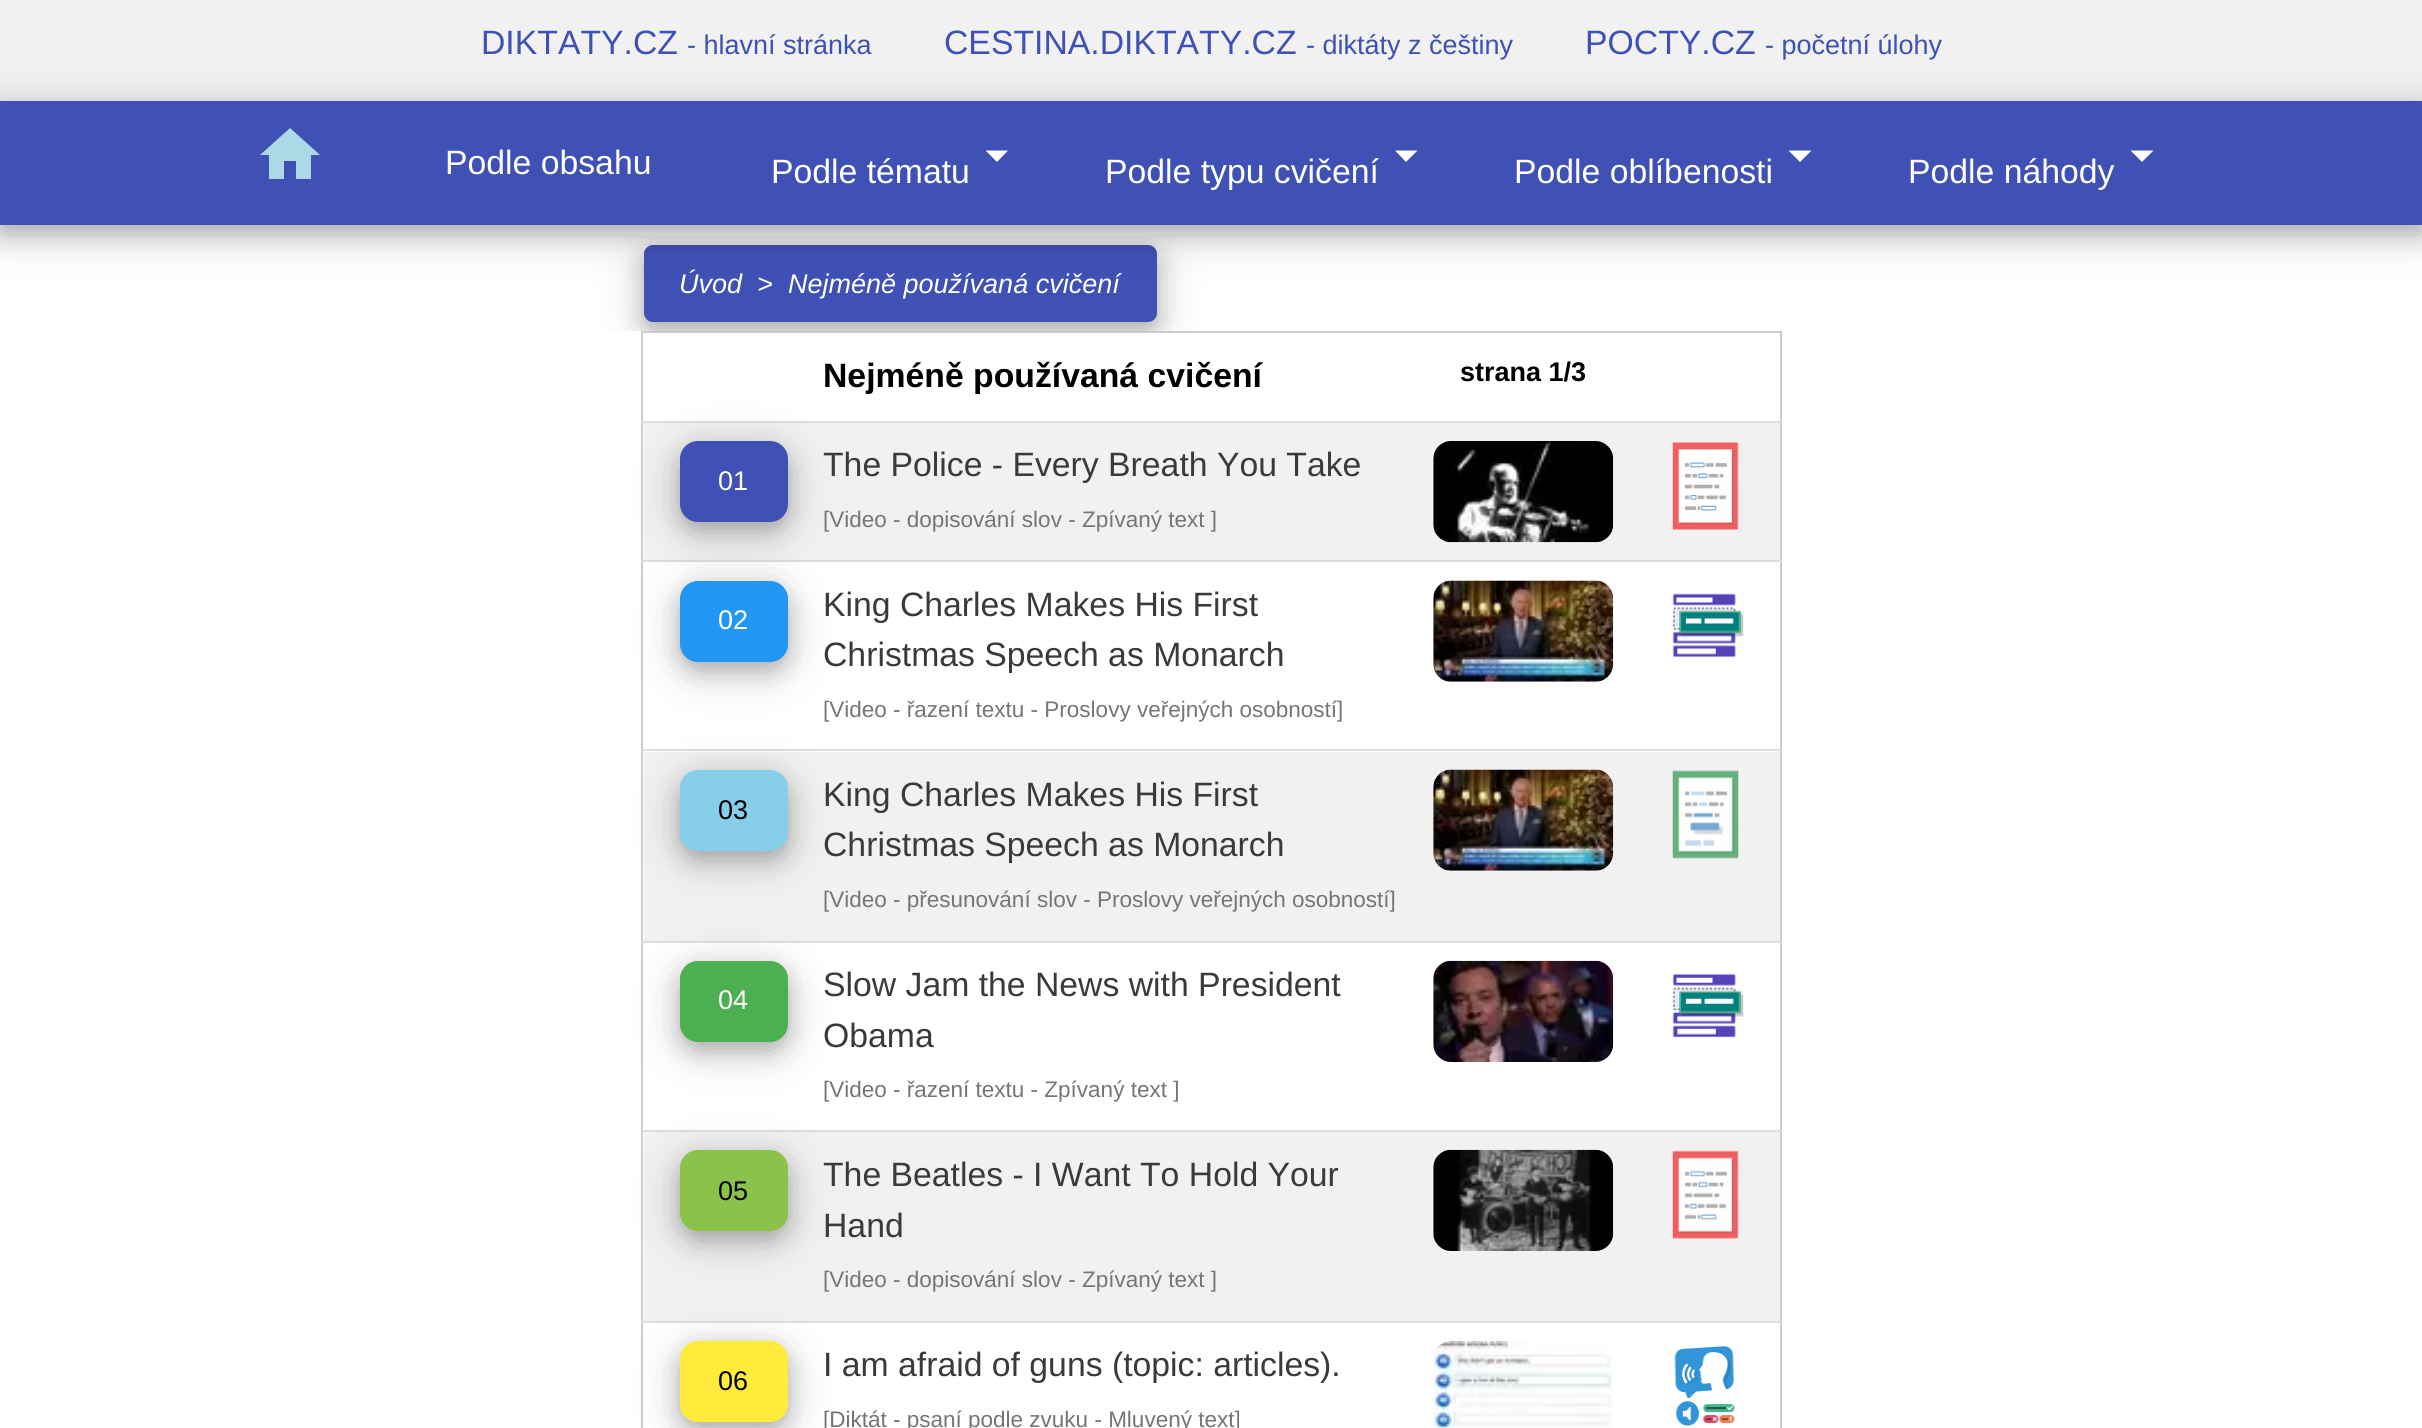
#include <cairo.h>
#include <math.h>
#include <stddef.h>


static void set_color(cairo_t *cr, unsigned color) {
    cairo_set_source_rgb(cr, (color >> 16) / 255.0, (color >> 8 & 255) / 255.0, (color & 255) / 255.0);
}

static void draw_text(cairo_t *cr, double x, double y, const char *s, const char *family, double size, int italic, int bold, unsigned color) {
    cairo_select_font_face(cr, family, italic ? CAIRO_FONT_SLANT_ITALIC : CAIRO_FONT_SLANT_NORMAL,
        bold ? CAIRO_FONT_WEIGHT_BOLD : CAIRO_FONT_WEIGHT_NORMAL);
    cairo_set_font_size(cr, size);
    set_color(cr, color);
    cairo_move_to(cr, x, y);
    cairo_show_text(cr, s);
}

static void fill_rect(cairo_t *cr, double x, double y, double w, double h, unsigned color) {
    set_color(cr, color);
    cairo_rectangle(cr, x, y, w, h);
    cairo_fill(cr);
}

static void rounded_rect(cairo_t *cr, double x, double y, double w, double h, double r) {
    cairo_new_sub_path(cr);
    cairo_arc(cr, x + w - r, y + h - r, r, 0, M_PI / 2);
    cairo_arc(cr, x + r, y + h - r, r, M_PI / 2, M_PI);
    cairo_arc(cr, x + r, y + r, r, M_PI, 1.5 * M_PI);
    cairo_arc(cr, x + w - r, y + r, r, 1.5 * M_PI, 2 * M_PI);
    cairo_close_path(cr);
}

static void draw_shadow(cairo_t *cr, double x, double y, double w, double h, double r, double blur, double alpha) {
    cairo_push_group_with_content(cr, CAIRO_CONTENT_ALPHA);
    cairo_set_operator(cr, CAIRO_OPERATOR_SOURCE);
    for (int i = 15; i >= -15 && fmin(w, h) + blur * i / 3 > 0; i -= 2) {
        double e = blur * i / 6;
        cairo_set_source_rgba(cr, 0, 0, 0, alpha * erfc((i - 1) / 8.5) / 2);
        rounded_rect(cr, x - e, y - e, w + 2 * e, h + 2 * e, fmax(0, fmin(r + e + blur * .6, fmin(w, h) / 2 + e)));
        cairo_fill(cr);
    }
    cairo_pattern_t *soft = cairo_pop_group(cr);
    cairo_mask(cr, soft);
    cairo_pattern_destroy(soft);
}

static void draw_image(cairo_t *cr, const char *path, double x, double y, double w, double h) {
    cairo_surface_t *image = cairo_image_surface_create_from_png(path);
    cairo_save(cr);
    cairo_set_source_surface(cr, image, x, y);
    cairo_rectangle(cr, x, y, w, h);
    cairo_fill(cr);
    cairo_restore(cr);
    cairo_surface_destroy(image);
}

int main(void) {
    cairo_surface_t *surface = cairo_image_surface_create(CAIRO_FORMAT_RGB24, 2422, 1428);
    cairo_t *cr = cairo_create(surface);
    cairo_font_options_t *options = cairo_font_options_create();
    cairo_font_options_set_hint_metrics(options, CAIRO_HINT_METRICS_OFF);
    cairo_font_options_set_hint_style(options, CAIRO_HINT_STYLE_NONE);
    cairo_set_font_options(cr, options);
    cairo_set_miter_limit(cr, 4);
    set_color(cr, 0xFFFFFF);
    cairo_paint(cr);
    fill_rect(cr, 0, 0, 2422, 101, 0xF1F1F1);
    fill_rect(cr, 641, 331, 1141, 2, 0xCCCCCC);
    fill_rect(cr, 641, 331, 2, 1097, 0xCCCCCC);
    cairo_save(cr);
    cairo_rectangle(cr, 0, 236, 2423, 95);
    cairo_clip(cr);
    set_color(cr, 0x000000);
    draw_shadow(cr, 644, 254, 513, 77, 9, 22.5, 0.19);
    draw_shadow(cr, 644, 254, 513, 77, 9, 11, 0.2);
    cairo_restore(cr);
    set_color(cr, 0x3F51B5);
    rounded_rect(cr, 644, 245, 513, 77, 9);
    cairo_fill(cr);
    set_color(cr, 0x000000);
    draw_shadow(cr, 0, 110, 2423, 124, 0, 22.5, 0.19);
    draw_text(cr, 481, 54, "DIKTATY.CZ", "Liberation Sans", 33.75, 0, 0, 0x3F51B5);
    draw_text(cr, 687, 54, "- hlavní stránka", "Liberation Sans", 27, 0, 0, 0x3F51B5);
    draw_text(cr, 944, 54, "CESTINA.DIKTATY.CZ", "Liberation Sans", 33.75, 0, 0, 0x3F51B5);
    draw_text(cr, 1306, 54, "- diktáty z češtiny", "Liberation Sans", 27, 0, 0, 0x3F51B5);
    draw_text(cr, 1585, 54, "POCTY.CZ", "Liberation Sans", 33.75, 0, 0, 0x3F51B5);
    draw_text(cr, 1765, 54, "- početní úlohy", "Liberation Sans", 27, 0, 0, 0x3F51B5);
    set_color(cr, 0x000000);
    draw_shadow(cr, 0, 110, 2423, 124, 0, 11, 0.2);
    fill_rect(cr, 0, 101, 2422, 124, 0x3F51B5);
    set_color(cr, 0xADD8E6);
    cairo_new_path(cr);
    cairo_move_to(cr, 284, 179);
    cairo_line_to(cr, 269, 179);
    cairo_line_to(cr, 269, 155);
    cairo_line_to(cr, 260, 155);
    cairo_line_to(cr, 290, 128);
    cairo_line_to(cr, 320, 155);
    cairo_line_to(cr, 311, 155);
    cairo_line_to(cr, 311, 179);
    cairo_line_to(cr, 296, 179);
    cairo_line_to(cr, 296, 161);
    cairo_line_to(cr, 284, 161);
    cairo_close_path(cr);
    cairo_fill(cr);
    draw_text(cr, 445, 174, "Podle obsahu", "Liberation Sans", 33.75, 0, 0, 0xFFFFFF);
    cairo_new_path(cr);
    cairo_move_to(cr, 985.5, 150.5);
    cairo_line_to(cr, 1008, 150.5);
    cairo_line_to(cr, 997, 162);
    cairo_close_path(cr);
    cairo_fill(cr);
    draw_text(cr, 771, 183, "Podle tématu", "Liberation Sans", 33.75, 0, 0, 0xFFFFFF);
    cairo_new_path(cr);
    cairo_move_to(cr, 1395, 150.5);
    cairo_line_to(cr, 1417.5, 150.5);
    cairo_line_to(cr, 1406, 162);
    cairo_close_path(cr);
    cairo_fill(cr);
    draw_text(cr, 1105, 183, "Podle typu cvičení", "Liberation Sans", 33.75, 0, 0, 0xFFFFFF);
    cairo_new_path(cr);
    cairo_move_to(cr, 1788.5, 150.5);
    cairo_line_to(cr, 1811.5, 150.5);
    cairo_line_to(cr, 1800, 162);
    cairo_close_path(cr);
    cairo_fill(cr);
    draw_text(cr, 1514, 183, "Podle oblíbenosti", "Liberation Sans", 33.75, 0, 0, 0xFFFFFF);
    cairo_new_path(cr);
    cairo_move_to(cr, 2130.5, 150.5);
    cairo_line_to(cr, 2153.5, 150.5);
    cairo_line_to(cr, 2142, 162);
    cairo_close_path(cr);
    cairo_fill(cr);
    draw_text(cr, 1908, 183, "Podle náhody", "Liberation Sans", 33.75, 0, 0, 0xFFFFFF);
    draw_text(cr, 679, 293, "Úvod", "Liberation Sans", 27, 1, 0, 0xFFFFFF);
    draw_text(cr, 757, 293, ">", "Liberation Sans", 27, 1, 0, 0xFFFFFF);
    draw_text(cr, 788, 293, "Nejméně používaná cvičení", "Liberation Sans", 27, 1, 0, 0xFFFFFF);
    fill_rect(cr, 1780, 331, 2, 1097, 0xCCCCCC);
    fill_rect(cr, 641, 421, 1141, 2, 0xDDDDDD);
    draw_text(cr, 823, 387, "Nejméně používaná cvičení", "Liberation Sans", 33.75, 0, 1, 0x000000);
    draw_text(cr, 1460, 381, "strana 1/3", "Liberation Sans", 27, 0, 1, 0x000000);
    fill_rect(cr, 644, 423, 1136, 137, 0xF1F1F1);
    fill_rect(cr, 641, 560, 1141, 2, 0xDDDDDD);
    set_color(cr, 0x000000);
    draw_shadow(cr, 680, 450, 108, 81, 18, 22.5, 0.19);
    draw_shadow(cr, 680, 450, 108, 81, 18, 11, 0.2);
    set_color(cr, 0x3F51B5);
    rounded_rect(cr, 681, 442, 106, 79, 17);
    cairo_fill_preserve(cr);
    cairo_stroke(cr);
    draw_text(cr, 718, 490, "01", "Liberation Sans", 27, 0, 0, 0xFFFFFF);
    draw_text(cr, 823, 476, "The Police - Every Breath You Take", "Liberation Sans", 33.75, 0, 0, 0x3A3A3A);
    draw_text(cr, 823, 527, "[Video - dopisování slov - Zpívaný text ]", "Liberation Sans", 22.5, 0, 0, 0x757575);
    draw_image(cr, "assets/img1.png", 1433, 441, 181, 102);
    draw_image(cr, "assets/img2.png", 1672, 442, 67, 88);
    fill_rect(cr, 641, 749, 1141, 2, 0xDDDDDD);
    set_color(cr, 0x000000);
    draw_shadow(cr, 680, 590, 108, 81, 18, 22.5, 0.19);
    draw_shadow(cr, 680, 590, 108, 81, 18, 11, 0.2);
    set_color(cr, 0x2196F3);
    rounded_rect(cr, 681, 582, 106, 79, 17);
    cairo_fill_preserve(cr);
    cairo_stroke(cr);
    draw_text(cr, 718, 629, "02", "Liberation Sans", 27, 0, 0, 0xFFFFFF);
    draw_text(cr, 823, 616, "King Charles Makes His First", "Liberation Sans", 33.75, 0, 0, 0x3A3A3A);
    draw_text(cr, 823, 666, "Christmas Speech as Monarch", "Liberation Sans", 33.75, 0, 0, 0x3A3A3A);
    draw_text(cr, 823, 717, "[Video - řazení textu - Proslovy veřejných osobností]", "Liberation Sans", 22.5, 0, 0, 0x757575);
    draw_image(cr, "assets/img3.png", 1433, 580, 181, 102);
    draw_image(cr, "assets/img4.png", 1672, 593, 72, 65);
    fill_rect(cr, 644, 752, 1136, 189, 0xF1F1F1);
    fill_rect(cr, 641, 941, 1141, 2, 0xDDDDDD);
    set_color(cr, 0x000000);
    draw_shadow(cr, 680, 779, 108, 81, 18, 22.5, 0.19);
    draw_shadow(cr, 680, 779, 108, 81, 18, 11, 0.2);
    set_color(cr, 0x87CEEB);
    rounded_rect(cr, 681, 771, 106, 79, 17);
    cairo_fill_preserve(cr);
    cairo_stroke(cr);
    draw_text(cr, 718, 819, "03", "Liberation Sans", 27, 0, 0, 0x000000);
    draw_text(cr, 823, 806, "King Charles Makes His First", "Liberation Sans", 33.75, 0, 0, 0x3A3A3A);
    draw_text(cr, 823, 856, "Christmas Speech as Monarch", "Liberation Sans", 33.75, 0, 0, 0x3A3A3A);
    draw_text(cr, 823, 907, "[Video - přesunování slov - Proslovy veřejných osobností]", "Liberation Sans", 22.5, 0, 0, 0x757575);
    draw_image(cr, "assets/img5.png", 1433, 769, 181, 102);
    draw_image(cr, "assets/img6.png", 1672, 770, 67, 89);
    fill_rect(cr, 641, 1130, 1141, 2, 0xDDDDDD);
    set_color(cr, 0x000000);
    draw_shadow(cr, 680, 970, 108, 81, 18, 22.5, 0.19);
    draw_shadow(cr, 680, 970, 108, 81, 18, 11, 0.2);
    set_color(cr, 0x4CAF50);
    rounded_rect(cr, 681, 962, 106, 79, 17);
    cairo_fill_preserve(cr);
    cairo_stroke(cr);
    draw_text(cr, 718, 1009, "04", "Liberation Sans", 27, 0, 0, 0xFFFFFF);
    draw_text(cr, 823, 996, "Slow Jam the News with President", "Liberation Sans", 33.75, 0, 0, 0x3A3A3A);
    draw_text(cr, 823, 1047, "Obama", "Liberation Sans", 33.75, 0, 0, 0x3A3A3A);
    draw_text(cr, 823, 1097, "[Video - řazení textu - Zpívaný text ]", "Liberation Sans", 22.5, 0, 0, 0x757575);
    draw_image(cr, "assets/img7.png", 1433, 960, 181, 102);
    draw_image(cr, "assets/img8.png", 1672, 973, 72, 65);
    fill_rect(cr, 644, 1132, 1136, 189, 0xF1F1F1);
    fill_rect(cr, 641, 1321, 1141, 2, 0xDDDDDD);
    set_color(cr, 0x000000);
    draw_shadow(cr, 680, 1159, 108, 81, 18, 22.5, 0.19);
    draw_shadow(cr, 680, 1159, 108, 81, 18, 11, 0.2);
    set_color(cr, 0x8BC34A);
    rounded_rect(cr, 681, 1151, 106, 79, 17);
    cairo_fill_preserve(cr);
    cairo_stroke(cr);
    draw_text(cr, 718, 1200, "05", "Liberation Sans", 27, 0, 0, 0x000000);
    draw_text(cr, 823, 1186, "The Beatles - I Want To Hold Your", "Liberation Sans", 33.75, 0, 0, 0x3A3A3A);
    draw_text(cr, 823, 1237, "Hand", "Liberation Sans", 33.75, 0, 0, 0x3A3A3A);
    draw_text(cr, 823, 1287, "[Video - dopisování slov - Zpívaný text ]", "Liberation Sans", 22.5, 0, 0, 0x757575);
    draw_image(cr, "assets/img9.png", 1433, 1149, 181, 102);
    draw_image(cr, "assets/img10.png", 1672, 1150, 67, 89);
    set_color(cr, 0x000000);
    draw_shadow(cr, 680, 1350, 108, 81, 18, 22.5, 0.19);
    draw_shadow(cr, 680, 1350, 108, 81, 18, 11, 0.2);
    set_color(cr, 0xFFEB3B);
    rounded_rect(cr, 681, 1342, 106, 79, 17);
    cairo_fill_preserve(cr);
    cairo_stroke(cr);
    draw_text(cr, 718, 1390, "06", "Liberation Sans", 27, 0, 0, 0x000000);
    draw_text(cr, 823, 1376, "I am afraid of guns (topic: articles).", "Liberation Sans", 33.75, 0, 0, 0x3A3A3A);
    draw_text(cr, 823, 1427, "[Diktát - psaní podle zvuku - Mluvený text]", "Liberation Sans", 22.5, 0, 0, 0x757575);
    draw_image(cr, "assets/img11.png", 1433, 1341, 180, 87);
    draw_image(cr, "assets/img12.png", 1674, 1346, 61, 80);
    cairo_surface_write_to_png(surface, "output.png");
    cairo_font_options_destroy(options);
    cairo_destroy(cr);
    cairo_surface_destroy(surface);
    return 0;
}
